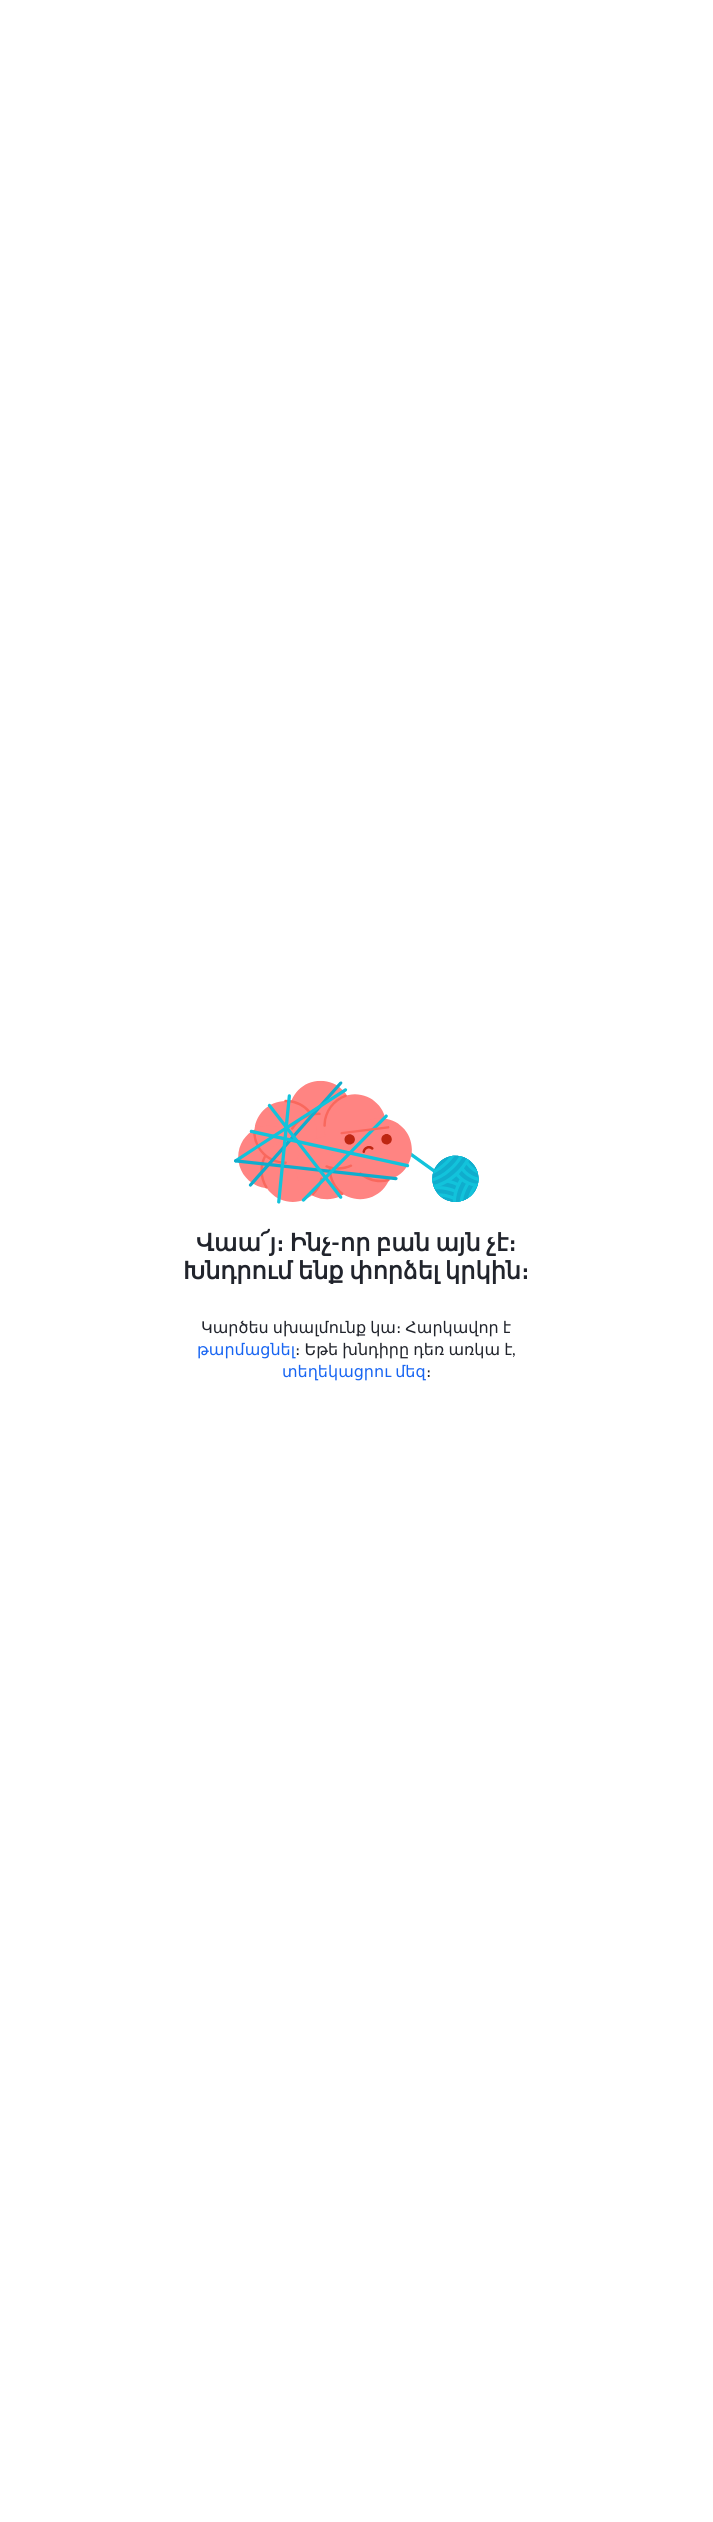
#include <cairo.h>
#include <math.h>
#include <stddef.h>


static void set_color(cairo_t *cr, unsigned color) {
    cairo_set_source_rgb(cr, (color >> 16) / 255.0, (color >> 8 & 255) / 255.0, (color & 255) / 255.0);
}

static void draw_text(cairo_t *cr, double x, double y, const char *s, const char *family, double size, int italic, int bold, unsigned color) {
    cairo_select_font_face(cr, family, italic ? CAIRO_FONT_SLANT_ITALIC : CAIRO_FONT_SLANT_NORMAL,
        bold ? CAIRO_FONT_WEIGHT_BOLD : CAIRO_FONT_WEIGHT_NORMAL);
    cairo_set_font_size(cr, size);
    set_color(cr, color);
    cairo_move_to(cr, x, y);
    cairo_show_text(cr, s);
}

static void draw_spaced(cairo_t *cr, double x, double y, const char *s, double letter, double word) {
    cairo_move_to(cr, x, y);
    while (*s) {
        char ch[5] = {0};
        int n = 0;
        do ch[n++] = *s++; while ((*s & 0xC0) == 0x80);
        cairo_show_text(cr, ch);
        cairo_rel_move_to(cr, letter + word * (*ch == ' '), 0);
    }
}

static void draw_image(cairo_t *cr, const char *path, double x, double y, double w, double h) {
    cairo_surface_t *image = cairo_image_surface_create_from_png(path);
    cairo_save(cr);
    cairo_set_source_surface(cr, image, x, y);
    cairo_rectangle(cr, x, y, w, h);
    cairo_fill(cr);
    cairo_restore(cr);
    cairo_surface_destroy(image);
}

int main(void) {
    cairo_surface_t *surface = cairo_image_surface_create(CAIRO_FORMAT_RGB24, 713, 2522);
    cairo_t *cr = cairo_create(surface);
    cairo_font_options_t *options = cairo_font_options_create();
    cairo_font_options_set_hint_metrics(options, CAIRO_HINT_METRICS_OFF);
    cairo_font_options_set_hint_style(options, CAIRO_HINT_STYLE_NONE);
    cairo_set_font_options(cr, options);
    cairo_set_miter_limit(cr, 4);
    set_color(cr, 0xFFFFFF);
    cairo_paint(cr);
    draw_image(cr, "assets/img1.png", 234, 1080, 245, 124);
    cairo_select_font_face(cr, "DejaVu Sans", CAIRO_FONT_SLANT_NORMAL, CAIRO_FONT_WEIGHT_BOLD);
    cairo_set_font_size(cr, 24);
    set_color(cr, 0x21242C);
    draw_spaced(cr, 196, 1251, "Վաա՜յ։ Ինչ", 0, -2);
    draw_text(cr, 331, 1251, "-", "Lato", 24, 0, 1, 0x21242C);
    cairo_select_font_face(cr, "DejaVu Sans", CAIRO_FONT_SLANT_NORMAL, CAIRO_FONT_WEIGHT_BOLD);
    draw_spaced(cr, 340, 1251, "որ բան այն չէ։", 0, -2);
    draw_spaced(cr, 183, 1279, "Խնդրում ենք փորձել կրկին։", 0, -2);
    cairo_select_font_face(cr, "DejaVu Sans", CAIRO_FONT_SLANT_NORMAL, CAIRO_FONT_WEIGHT_NORMAL);
    cairo_set_font_size(cr, 16);
    draw_spaced(cr, 201, 1333, "Կարծես սխալմունք կա։ Հարկավոր է", 0, -1);
    draw_text(cr, 197, 1355, "թարմացնել", "DejaVu Sans", 16, 0, 0, 0x1865F2);
    set_color(cr, 0x21242C);
    draw_spaced(cr, 295, 1355, "։ Եթե խնդիրը դեռ առկա է", 0, -1);
    draw_text(cr, 512, 1355, ",", "Lato", 16, 0, 0, 0x21242C);
    cairo_select_font_face(cr, "DejaVu Sans", CAIRO_FONT_SLANT_NORMAL, CAIRO_FONT_WEIGHT_NORMAL);
    set_color(cr, 0x1865F2);
    draw_spaced(cr, 282, 1377, "տեղեկացրու մեզ", 0, -1);
    draw_text(cr, 426, 1377, "։", "DejaVu Sans", 16, 0, 0, 0x21242C);
    cairo_surface_write_to_png(surface, "output.png");
    cairo_font_options_destroy(options);
    cairo_destroy(cr);
    cairo_surface_destroy(surface);
    return 0;
}
